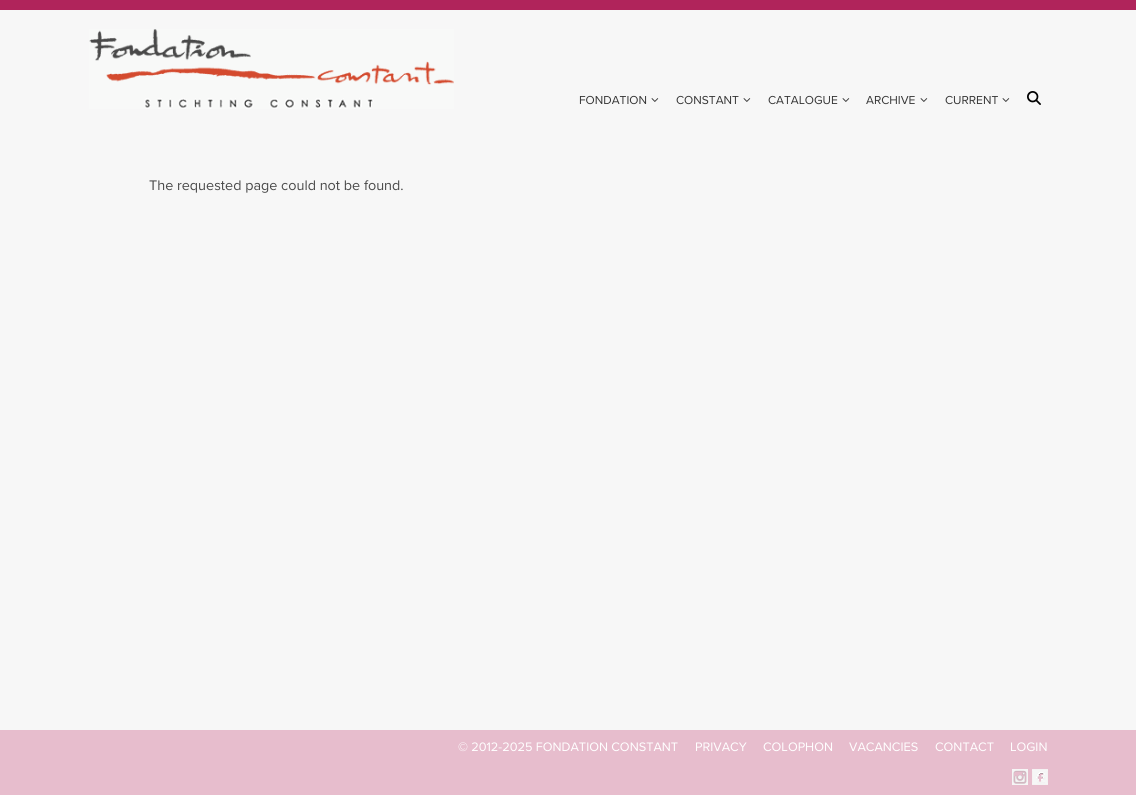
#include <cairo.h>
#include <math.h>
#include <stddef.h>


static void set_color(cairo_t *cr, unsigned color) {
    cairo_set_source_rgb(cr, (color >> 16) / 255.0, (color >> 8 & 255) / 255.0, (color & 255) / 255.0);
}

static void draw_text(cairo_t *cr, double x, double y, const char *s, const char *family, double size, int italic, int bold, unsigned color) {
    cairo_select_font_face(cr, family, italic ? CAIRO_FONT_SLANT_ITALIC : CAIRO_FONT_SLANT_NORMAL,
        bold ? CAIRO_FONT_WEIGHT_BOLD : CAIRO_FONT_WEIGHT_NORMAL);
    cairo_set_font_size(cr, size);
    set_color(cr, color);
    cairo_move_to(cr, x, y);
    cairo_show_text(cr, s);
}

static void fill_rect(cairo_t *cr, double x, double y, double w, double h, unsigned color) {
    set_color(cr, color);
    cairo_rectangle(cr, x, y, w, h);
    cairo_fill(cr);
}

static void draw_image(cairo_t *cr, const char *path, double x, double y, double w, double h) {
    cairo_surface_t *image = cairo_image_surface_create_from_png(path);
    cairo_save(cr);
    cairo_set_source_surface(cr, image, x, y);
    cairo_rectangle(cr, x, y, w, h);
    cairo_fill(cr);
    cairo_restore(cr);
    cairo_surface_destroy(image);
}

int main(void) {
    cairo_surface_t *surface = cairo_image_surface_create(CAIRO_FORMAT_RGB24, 1136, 795);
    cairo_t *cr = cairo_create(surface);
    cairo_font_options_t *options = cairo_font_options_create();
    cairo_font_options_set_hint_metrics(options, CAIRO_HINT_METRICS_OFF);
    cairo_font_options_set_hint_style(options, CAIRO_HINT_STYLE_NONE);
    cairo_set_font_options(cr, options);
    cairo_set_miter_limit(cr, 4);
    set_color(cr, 0xF7F7F7);
    cairo_paint(cr);
    fill_rect(cr, 0, 0, 1136, 10, 0xB0245B);
    draw_image(cr, "assets/img1.png", 89, 29, 365, 80);
    draw_text(cr, 579, 104, "FONDATION", "Proxima Nova", 12, 0, 0, 0x363636);
    draw_image(cr, "assets/img2.png", 651, 98, 8, 4);
    draw_text(cr, 676, 104, "CONSTANT", "Proxima Nova", 12, 0, 0, 0x363636);
    draw_image(cr, "assets/img2.png", 743, 98, 8, 4);
    draw_text(cr, 768, 104, "CATALOGUE", "Proxima Nova", 12, 0, 0, 0x363636);
    draw_image(cr, "assets/img2.png", 842, 98, 8, 4);
    draw_text(cr, 866, 104, "ARCHIVE", "Proxima Nova", 12, 0, 0, 0x363636);
    draw_image(cr, "assets/img2.png", 920, 98, 8, 4);
    draw_text(cr, 945, 104, "CURRENT", "Proxima Nova", 12, 0, 0, 0x363636);
    draw_image(cr, "assets/img2.png", 1002, 98, 8, 4);
    draw_image(cr, "assets/img3.png", 1027, 91, 14, 14);
    draw_text(cr, 149, 190, "The requested page could not be found.", "Proxima Nova", 14.4, 0, 0, 0x494949);
    fill_rect(cr, 0, 730, 1136, 65, 0xE7BDCD);
    draw_text(cr, 458, 751, "© 2012-2025 FONDATION CONSTANT", "Proxima Nova", 12.75, 0, 0, 0xFFFFFF);
    draw_text(cr, 695, 751, "PRIVACY", "Proxima Nova", 12.75, 0, 0, 0xFFFFFF);
    draw_text(cr, 763, 751, "COLOPHON", "Proxima Nova", 12.75, 0, 0, 0xFFFFFF);
    draw_text(cr, 849, 751, "VACANCIES", "Proxima Nova", 12.75, 0, 0, 0xFFFFFF);
    draw_text(cr, 935, 751, "CONTACT", "Proxima Nova", 12.75, 0, 0, 0xFFFFFF);
    draw_text(cr, 1010, 751, "LOGIN", "Proxima Nova", 12.75, 0, 0, 0xFFFFFF);
    draw_image(cr, "assets/img4.png", 1012, 769, 16, 16);
    draw_image(cr, "assets/img5.png", 1032, 769, 16, 16);
    cairo_surface_write_to_png(surface, "output.png");
    cairo_font_options_destroy(options);
    cairo_destroy(cr);
    cairo_surface_destroy(surface);
    return 0;
}
